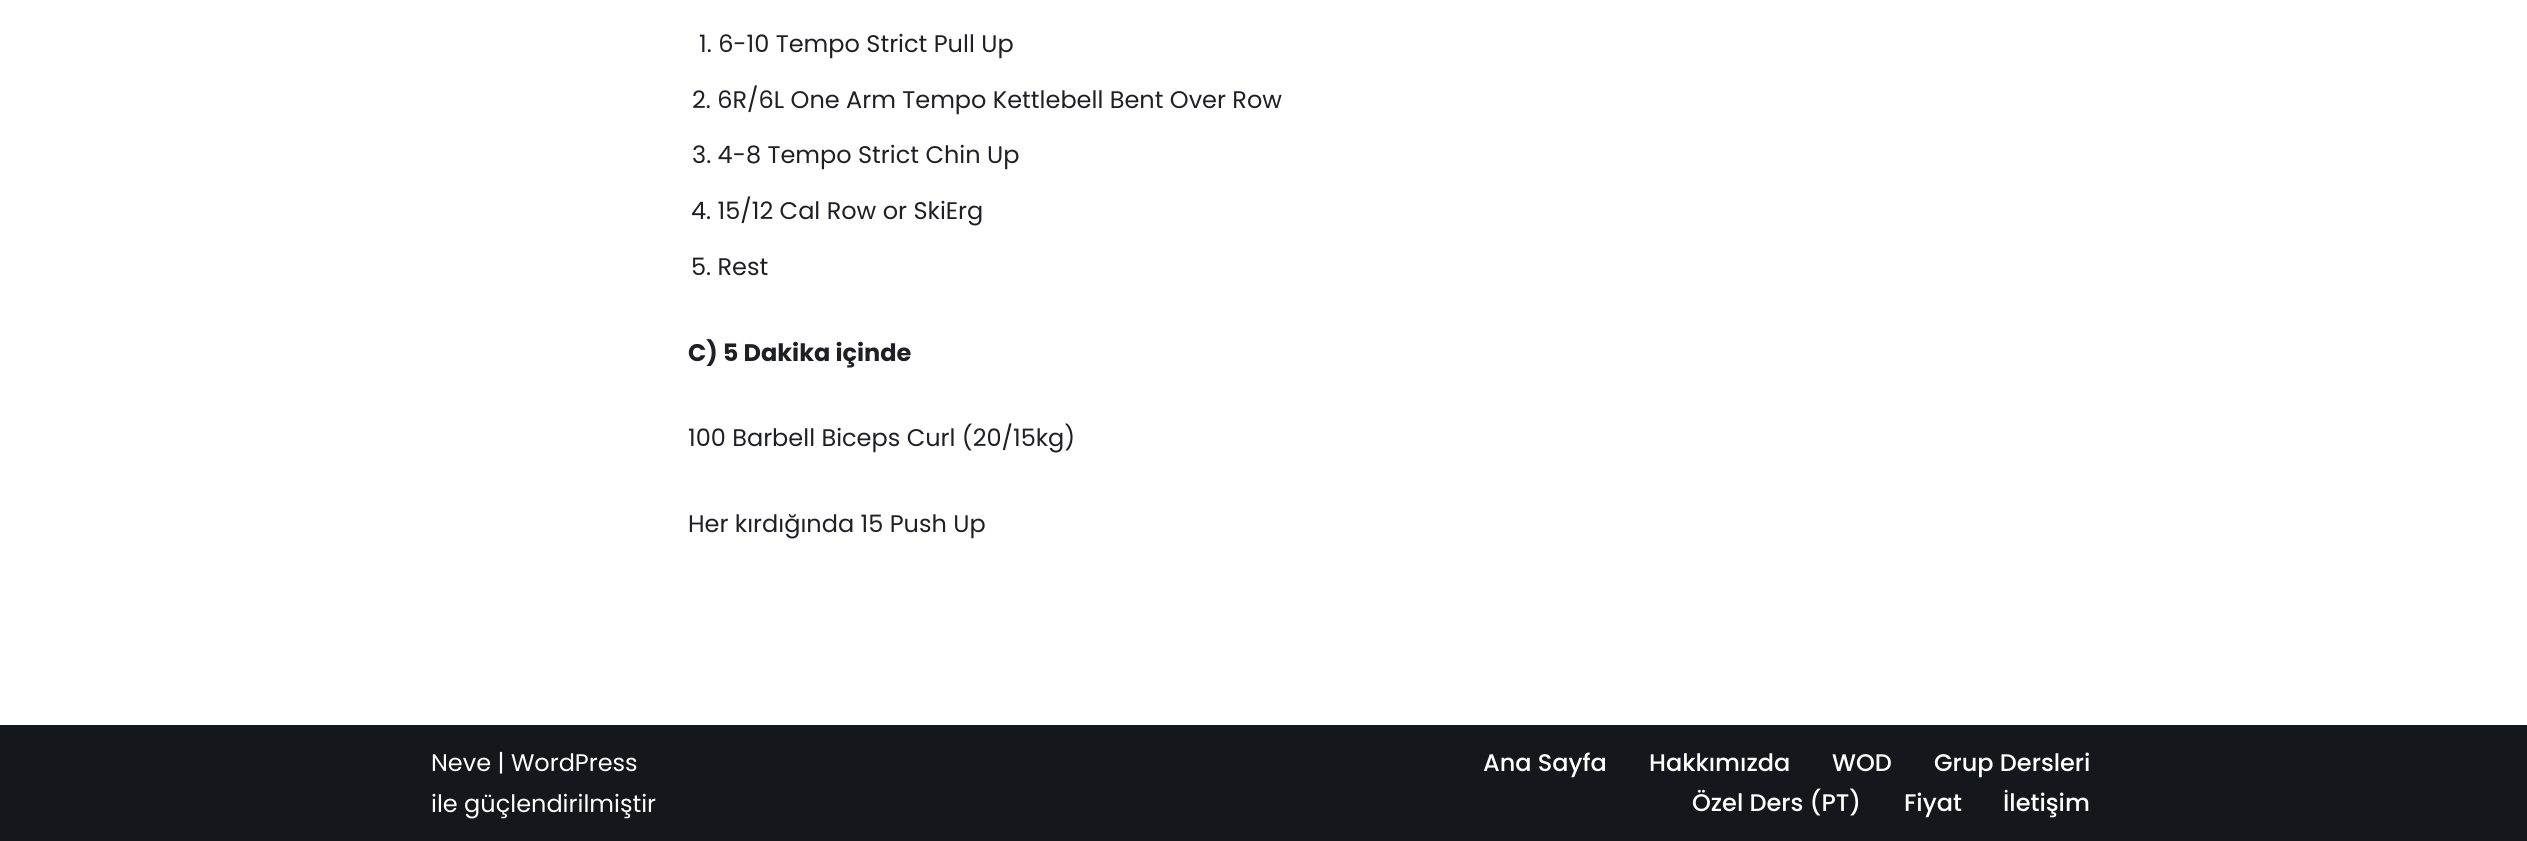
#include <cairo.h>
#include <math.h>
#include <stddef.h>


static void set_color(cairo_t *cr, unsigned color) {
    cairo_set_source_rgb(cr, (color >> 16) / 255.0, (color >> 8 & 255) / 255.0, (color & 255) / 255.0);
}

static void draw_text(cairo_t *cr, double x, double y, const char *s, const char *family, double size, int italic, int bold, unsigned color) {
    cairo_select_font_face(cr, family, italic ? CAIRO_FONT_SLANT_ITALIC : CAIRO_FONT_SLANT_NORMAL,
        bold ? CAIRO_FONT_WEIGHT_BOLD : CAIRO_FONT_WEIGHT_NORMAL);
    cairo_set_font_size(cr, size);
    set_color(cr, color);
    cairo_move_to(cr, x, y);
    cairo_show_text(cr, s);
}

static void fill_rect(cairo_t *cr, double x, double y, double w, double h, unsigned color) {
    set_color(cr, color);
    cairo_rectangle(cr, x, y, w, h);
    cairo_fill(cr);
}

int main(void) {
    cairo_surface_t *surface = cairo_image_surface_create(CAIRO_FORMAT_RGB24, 2527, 841);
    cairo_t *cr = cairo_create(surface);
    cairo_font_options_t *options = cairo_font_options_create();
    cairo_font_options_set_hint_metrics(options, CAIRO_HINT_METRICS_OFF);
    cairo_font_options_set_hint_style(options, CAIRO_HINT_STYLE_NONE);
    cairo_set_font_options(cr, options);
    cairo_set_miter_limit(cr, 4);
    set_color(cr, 0xFFFFFF);
    cairo_paint(cr);
    draw_text(cr, 699, 52, "1. 6-10 Tempo Strict Pull Up", "Poppins", 24, 0, 0, 0x1F2025);
    draw_text(cr, 692, 108, "2. 6R/6L One Arm Tempo Kettlebell Bent Over Row", "Poppins", 24, 0, 0, 0x1F2025);
    draw_text(cr, 692, 163, "3. 4-8 Tempo Strict Chin Up", "Poppins", 24, 0, 0, 0x1F2025);
    draw_text(cr, 691, 219, "4. 15/12 Cal Row or SkiErg", "Poppins", 24, 0, 0, 0x1F2025);
    draw_text(cr, 691, 275, "5. Rest", "Poppins", 24, 0, 0, 0x1F2025);
    draw_text(cr, 688, 361, "C) 5 Dakika içinde", "Poppins", 24, 0, 1, 0x1F2025);
    draw_text(cr, 688, 446, "100 Barbell Biceps Curl (20/15kg)", "Poppins", 24, 0, 0, 0x1F2025);
    draw_text(cr, 688, 532, "Her kırdığında 15 Push Up", "Poppins", 24, 0, 0, 0x1F2025);
    fill_rect(cr, 0, 725, 2527, 116, 0x14171C);
    draw_text(cr, 431, 771, "Neve | WordPress", "Poppins", 24, 0, 0, 0xFFFFFF);
    draw_text(cr, 431, 812, "ile güçlendirilmiştir", "Poppins", 24, 0, 0, 0xFFFFFF);
    draw_text(cr, 1483, 771, "Ana Sayfa", "Poppins Medium", 24, 0, 0, 0xFFFFFF);
    draw_text(cr, 1649, 771, "Hakkımızda", "Poppins Medium", 24, 0, 0, 0xFFFFFF);
    draw_text(cr, 1832, 771, "WOD", "Poppins Medium", 24, 0, 0, 0xFFFFFF);
    draw_text(cr, 1934, 771, "Grup Dersleri", "Poppins Medium", 24, 0, 0, 0xFFFFFF);
    draw_text(cr, 1692, 811, "Özel Ders (PT)", "Poppins Medium", 24, 0, 0, 0xFFFFFF);
    draw_text(cr, 1904, 811, "Fiyat", "Poppins Medium", 24, 0, 0, 0xFFFFFF);
    draw_text(cr, 2003, 811, "İletişim", "Poppins Medium", 24, 0, 0, 0xFFFFFF);
    cairo_surface_write_to_png(surface, "output.png");
    cairo_font_options_destroy(options);
    cairo_destroy(cr);
    cairo_surface_destroy(surface);
    return 0;
}
